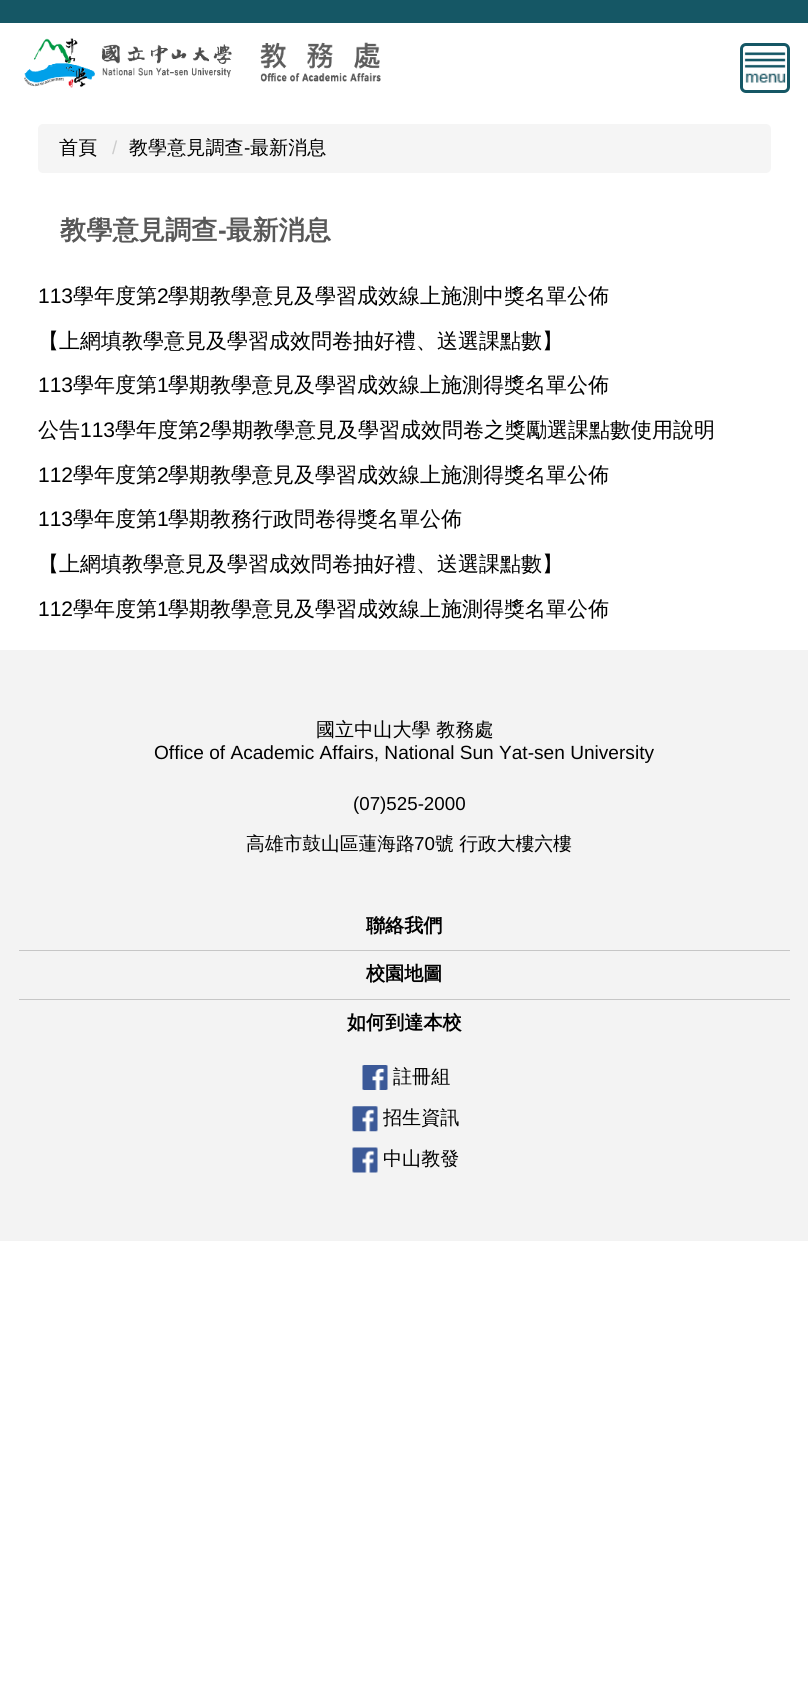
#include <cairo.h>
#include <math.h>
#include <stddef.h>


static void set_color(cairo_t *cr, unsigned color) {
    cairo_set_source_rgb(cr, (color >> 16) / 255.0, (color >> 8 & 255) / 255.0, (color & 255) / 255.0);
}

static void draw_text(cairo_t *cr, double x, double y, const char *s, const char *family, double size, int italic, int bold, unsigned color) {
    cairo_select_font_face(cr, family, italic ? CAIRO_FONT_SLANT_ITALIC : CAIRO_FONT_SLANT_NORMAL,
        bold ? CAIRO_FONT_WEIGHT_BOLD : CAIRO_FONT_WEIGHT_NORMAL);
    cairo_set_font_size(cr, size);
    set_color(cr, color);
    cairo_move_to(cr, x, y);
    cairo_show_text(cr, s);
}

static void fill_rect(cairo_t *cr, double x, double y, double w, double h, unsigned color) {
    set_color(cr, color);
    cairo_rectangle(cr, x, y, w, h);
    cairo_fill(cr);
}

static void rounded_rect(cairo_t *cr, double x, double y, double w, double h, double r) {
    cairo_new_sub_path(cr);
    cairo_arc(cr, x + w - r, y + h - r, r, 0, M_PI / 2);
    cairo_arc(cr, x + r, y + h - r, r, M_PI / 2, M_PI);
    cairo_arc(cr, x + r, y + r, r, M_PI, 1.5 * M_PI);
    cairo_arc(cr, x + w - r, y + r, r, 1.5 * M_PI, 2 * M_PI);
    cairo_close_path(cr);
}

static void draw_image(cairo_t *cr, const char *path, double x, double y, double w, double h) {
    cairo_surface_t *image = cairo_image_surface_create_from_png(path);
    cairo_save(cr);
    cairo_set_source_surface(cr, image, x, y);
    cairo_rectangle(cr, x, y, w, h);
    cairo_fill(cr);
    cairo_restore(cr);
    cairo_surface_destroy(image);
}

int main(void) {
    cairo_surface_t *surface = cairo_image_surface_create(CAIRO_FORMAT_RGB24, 808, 1681);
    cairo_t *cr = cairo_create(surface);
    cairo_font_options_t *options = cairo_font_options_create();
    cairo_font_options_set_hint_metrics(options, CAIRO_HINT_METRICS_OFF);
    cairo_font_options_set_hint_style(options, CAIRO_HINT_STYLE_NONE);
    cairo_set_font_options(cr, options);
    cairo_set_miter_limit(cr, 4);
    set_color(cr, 0xFFFFFF);
    cairo_paint(cr);
    fill_rect(cr, 0, 0, 808, 23, 0x155765);
    draw_image(cr, "assets/img1.png", 24, 38, 357, 50);
    draw_image(cr, "assets/img2.png", 744, 52, 42, 31);
    rounded_rect(cr, 741.5, 44.5, 47, 47, 4.5);
    cairo_set_line_width(cr, 3);
    cairo_stroke(cr);
    set_color(cr, 0xF5F5F5);
    rounded_rect(cr, 38, 124, 733, 49, 5);
    cairo_fill(cr);
    draw_text(cr, 59, 154, "首頁", "WenQuanYi Zen Hei Medium", 19.1, 0, 0, 0x000000);
    draw_text(cr, 112, 154, "/", "Liberation Sans", 18.75, 0, 0, 0xCCCCCC);
    draw_text(cr, 129, 154, "教學意見調查", "WenQuanYi Zen Hei Medium", 19.1, 0, 0, 0x000000);
    draw_text(cr, 244, 154, "-", "Liberation Sans", 19.1, 0, 0, 0x000000);
    draw_text(cr, 250, 154, "最新消息", "WenQuanYi Zen Hei Medium", 19.1, 0, 0, 0x000000);
    draw_text(cr, 60, 239, "教學意見調查", "WenQuanYi Zen Hei", 26.25, 0, 1, 0x585858);
    draw_text(cr, 218, 239, "-", "Liberation Sans", 26.25, 0, 1, 0x585858);
    draw_text(cr, 226, 239, "最新消息", "WenQuanYi Zen Hei", 26.25, 0, 1, 0x585858);
    draw_text(cr, 38, 303, "113", "Liberation Sans", 21, 0, 0, 0x000000);
    draw_text(cr, 73, 303, "學年度第", "WenQuanYi Zen Hei Medium", 21, 0, 0, 0x000000);
    draw_text(cr, 157, 303, "2", "Liberation Sans", 21, 0, 0, 0x000000);
    draw_text(cr, 168, 303, "學期教學意見及學習成效線上施測中獎名單公佈", "WenQuanYi Zen Hei Medium", 21, 0, 0, 0x000000);
    draw_text(cr, 38, 348, "【上網填教學意見及學習成效問卷抽好禮、送選課點數】", "WenQuanYi Zen Hei Medium", 21, 0, 0, 0x000000);
    draw_text(cr, 38, 392, "113", "Liberation Sans", 21, 0, 0, 0x000000);
    draw_text(cr, 73, 392, "學年度第", "WenQuanYi Zen Hei Medium", 21, 0, 0, 0x000000);
    draw_text(cr, 157, 392, "1", "Liberation Sans", 21, 0, 0, 0x000000);
    draw_text(cr, 168, 392, "學期教學意見及學習成效線上施測得獎名單公佈", "WenQuanYi Zen Hei Medium", 21, 0, 0, 0x000000);
    draw_text(cr, 38, 437, "公告", "WenQuanYi Zen Hei Medium", 21, 0, 0, 0x000000);
    draw_text(cr, 80, 437, "113", "Liberation Sans", 21, 0, 0, 0x000000);
    draw_text(cr, 115, 437, "學年度第", "WenQuanYi Zen Hei Medium", 21, 0, 0, 0x000000);
    draw_text(cr, 199, 437, "2", "Liberation Sans", 21, 0, 0, 0x000000);
    draw_text(cr, 211, 437, "學期教學意見及學習成效問卷之獎勵選課點數使用說明", "WenQuanYi Zen Hei Medium", 21, 0, 0, 0x000000);
    draw_text(cr, 38, 482, "112", "Liberation Sans", 21, 0, 0, 0x000000);
    draw_text(cr, 73, 482, "學年度第", "WenQuanYi Zen Hei Medium", 21, 0, 0, 0x000000);
    draw_text(cr, 157, 482, "2", "Liberation Sans", 21, 0, 0, 0x000000);
    draw_text(cr, 168, 482, "學期教學意見及學習成效線上施測得獎名單公佈", "WenQuanYi Zen Hei Medium", 21, 0, 0, 0x000000);
    draw_text(cr, 38, 526, "113", "Liberation Sans", 21, 0, 0, 0x000000);
    draw_text(cr, 73, 526, "學年度第", "WenQuanYi Zen Hei Medium", 21, 0, 0, 0x000000);
    draw_text(cr, 157, 526, "1", "Liberation Sans", 21, 0, 0, 0x000000);
    draw_text(cr, 168, 526, "學期教務行政問卷得獎名單公佈", "WenQuanYi Zen Hei Medium", 21, 0, 0, 0x000000);
    draw_text(cr, 38, 571, "【上網填教學意見及學習成效問卷抽好禮、送選課點數】", "WenQuanYi Zen Hei Medium", 21, 0, 0, 0x000000);
    draw_text(cr, 38, 616, "112", "Liberation Sans", 21, 0, 0, 0x000000);
    draw_text(cr, 73, 616, "學年度第", "WenQuanYi Zen Hei Medium", 21, 0, 0, 0x000000);
    draw_text(cr, 157, 616, "1", "Liberation Sans", 21, 0, 0, 0x000000);
    draw_text(cr, 168, 616, "學期教學意見及學習成效線上施測得獎名單公佈", "WenQuanYi Zen Hei Medium", 21, 0, 0, 0x000000);
    fill_rect(cr, 0, 650, 808, 591, 0xF3F3F3);
    draw_text(cr, 316, 736, "國立中山大學 教務處", "WenQuanYi Zen Hei Medium", 19.1, 0, 0, 0x000000);
    draw_text(cr, 154, 759, "Office of Academic Affairs, National Sun Yat-sen University", "Liberation Sans", 19.1, 0, 0, 0x000000);
    draw_text(cr, 353, 810, "(07)525-2000", "Liberation Sans", 18.75, 0, 0, 0x000000);
    draw_text(cr, 246, 850, "高雄市鼓山區蓮海路", "WenQuanYi Zen Hei Medium", 18.75, 0, 0, 0x000000);
    draw_text(cr, 414, 850, "70", "Liberation Sans", 18.75, 0, 0, 0x000000);
    draw_text(cr, 435, 850, "號 行政大樓六樓", "WenQuanYi Zen Hei Medium", 18.75, 0, 0, 0x000000);
    draw_text(cr, 366, 932, "聯絡我們", "WenQuanYi Zen Hei", 19.1, 0, 1, 0x000000);
    fill_rect(cr, 19, 950, 771, 1, 0xC6C6C6);
    draw_text(cr, 366, 980, "校園地圖", "WenQuanYi Zen Hei", 19.1, 0, 1, 0x000000);
    fill_rect(cr, 19, 999, 771, 1, 0xC6C6C6);
    draw_text(cr, 347, 1029, "如何到達本校", "WenQuanYi Zen Hei", 19.1, 0, 1, 0x000000);
    draw_image(cr, "assets/img3.png", 362, 1065, 26, 25);
    draw_text(cr, 393, 1083, "註冊組", "WenQuanYi Zen Hei Medium", 19.1, 0, 0, 0x000000);
    draw_image(cr, "assets/img4.png", 352, 1106, 26, 26);
    draw_text(cr, 383, 1124, "招生資訊", "WenQuanYi Zen Hei Medium", 19.1, 0, 0, 0x000000);
    draw_image(cr, "assets/img5.png", 352, 1147, 26, 26);
    draw_text(cr, 383, 1165, "中山教發", "WenQuanYi Zen Hei Medium", 19.1, 0, 0, 0x000000);
    cairo_surface_write_to_png(surface, "output.png");
    cairo_font_options_destroy(options);
    cairo_destroy(cr);
    cairo_surface_destroy(surface);
    return 0;
}
